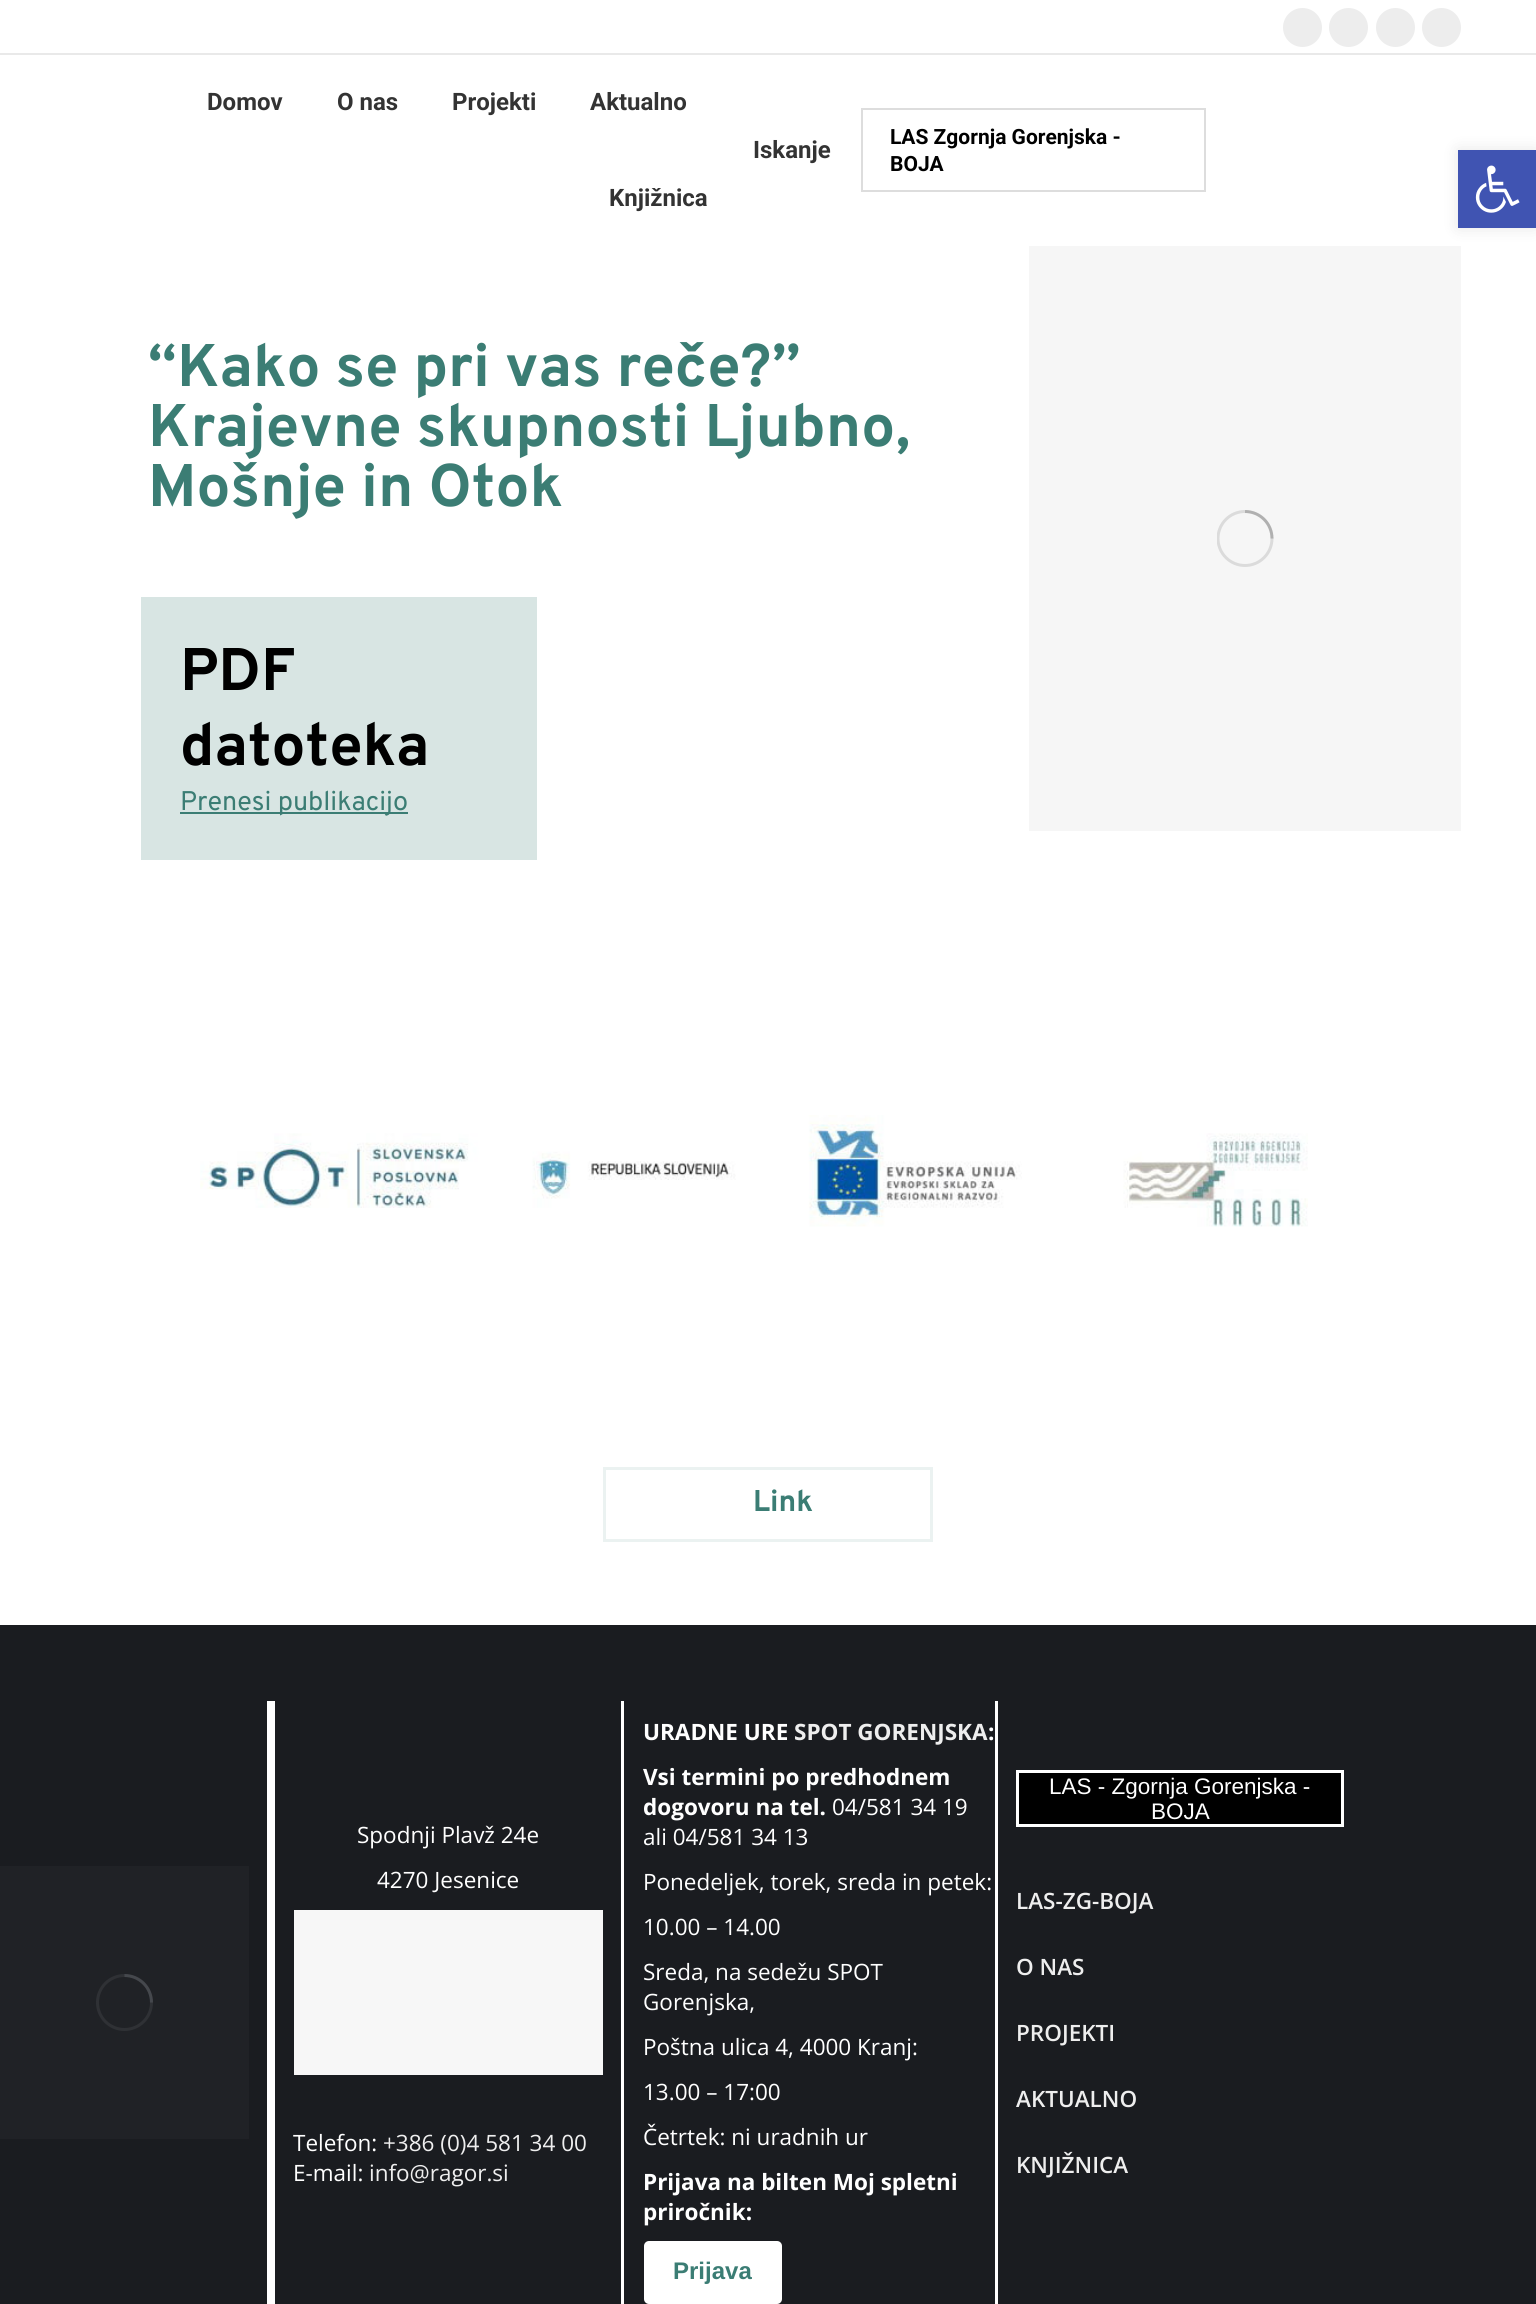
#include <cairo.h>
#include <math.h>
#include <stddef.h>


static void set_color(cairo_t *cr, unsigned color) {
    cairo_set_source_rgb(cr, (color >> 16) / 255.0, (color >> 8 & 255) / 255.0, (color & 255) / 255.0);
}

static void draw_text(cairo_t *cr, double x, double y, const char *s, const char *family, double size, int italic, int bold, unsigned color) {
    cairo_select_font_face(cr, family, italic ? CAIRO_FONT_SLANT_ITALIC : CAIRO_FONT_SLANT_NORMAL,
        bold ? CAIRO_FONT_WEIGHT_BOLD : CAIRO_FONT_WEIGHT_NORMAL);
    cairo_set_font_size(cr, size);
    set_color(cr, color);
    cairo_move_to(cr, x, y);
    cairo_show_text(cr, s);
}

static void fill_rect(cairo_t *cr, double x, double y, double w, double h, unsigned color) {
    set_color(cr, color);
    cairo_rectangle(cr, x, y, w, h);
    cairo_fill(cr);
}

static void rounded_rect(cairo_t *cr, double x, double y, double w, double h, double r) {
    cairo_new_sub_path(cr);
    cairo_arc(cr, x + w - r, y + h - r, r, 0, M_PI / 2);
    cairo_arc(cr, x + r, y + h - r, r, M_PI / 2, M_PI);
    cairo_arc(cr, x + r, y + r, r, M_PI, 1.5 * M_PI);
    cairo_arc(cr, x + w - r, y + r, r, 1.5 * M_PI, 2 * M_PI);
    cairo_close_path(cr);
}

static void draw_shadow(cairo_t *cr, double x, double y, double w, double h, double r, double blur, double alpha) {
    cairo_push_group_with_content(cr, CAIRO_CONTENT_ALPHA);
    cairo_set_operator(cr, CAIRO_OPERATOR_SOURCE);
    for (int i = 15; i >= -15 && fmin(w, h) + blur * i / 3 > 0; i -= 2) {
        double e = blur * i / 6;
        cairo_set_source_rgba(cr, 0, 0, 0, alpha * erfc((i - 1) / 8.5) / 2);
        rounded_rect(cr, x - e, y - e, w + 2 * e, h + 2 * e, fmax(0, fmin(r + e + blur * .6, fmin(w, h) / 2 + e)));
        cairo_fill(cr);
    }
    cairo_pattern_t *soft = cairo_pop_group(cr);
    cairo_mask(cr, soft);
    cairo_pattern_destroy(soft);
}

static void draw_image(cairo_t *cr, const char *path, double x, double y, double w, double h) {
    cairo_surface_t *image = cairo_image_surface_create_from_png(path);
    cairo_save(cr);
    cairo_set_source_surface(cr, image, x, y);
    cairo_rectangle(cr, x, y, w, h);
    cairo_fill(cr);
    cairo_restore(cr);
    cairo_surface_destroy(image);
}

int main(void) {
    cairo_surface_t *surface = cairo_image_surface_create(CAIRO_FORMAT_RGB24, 1536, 2304);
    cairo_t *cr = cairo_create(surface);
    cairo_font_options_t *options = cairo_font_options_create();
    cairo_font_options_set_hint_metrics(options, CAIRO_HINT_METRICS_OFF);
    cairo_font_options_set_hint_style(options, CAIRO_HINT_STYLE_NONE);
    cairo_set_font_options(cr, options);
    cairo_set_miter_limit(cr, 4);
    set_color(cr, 0xFFFFFF);
    cairo_paint(cr);
    set_color(cr, 0xEDEDED);
    cairo_arc(cr, 1302.5, 27.5, 19.5, 0, 2 * M_PI);
    cairo_fill(cr);
    cairo_arc(cr, 1348.5, 27.5, 19.5, 0, 2 * M_PI);
    cairo_fill(cr);
    cairo_arc(cr, 1395.5, 27.5, 19.5, 0, 2 * M_PI);
    cairo_fill(cr);
    cairo_arc(cr, 1441.5, 27.5, 19.5, 0, 2 * M_PI);
    cairo_fill(cr);
    fill_rect(cr, 0, 53, 1536, 2, 0xE9E9E9);
    draw_text(cr, 207, 110, "Domov", "Roboto", 24, 0, 1, 0x333333);
    draw_text(cr, 337, 110, "O nas", "Roboto", 24, 0, 1, 0x333333);
    draw_text(cr, 452, 110, "Projekti", "Roboto", 24, 0, 1, 0x333333);
    draw_text(cr, 590, 110, "Aktualno", "Roboto", 24, 0, 1, 0x333333);
    draw_text(cr, 609, 206, "Knjižnica", "Roboto", 24, 0, 1, 0x333333);
    draw_text(cr, 753, 158, "Iskanje", "Roboto", 24, 0, 1, 0x333333);
    cairo_rectangle(cr, 862, 109, 343, 82);
    set_color(cr, 0xDDDDDD);
    cairo_stroke(cr);
    draw_text(cr, 890, 144, "LAS Zgornja Gorenjska -", "Roboto", 21, 0, 1, 0x000000);
    draw_text(cr, 890, 171, "BOJA", "Roboto", 21, 0, 1, 0x000000);
    draw_text(cr, 148, 386, "“Kako se pri vas reče?”", "Overpass", 60, 0, 1, 0x3B7D74);
    draw_text(cr, 148, 446, "Krajevne skupnosti Ljubno,", "Overpass", 60, 0, 1, 0x3B7D74);
    draw_text(cr, 148, 506, "Mošnje in Otok", "Overpass", 60, 0, 1, 0x3B7D74);
    fill_rect(cr, 141, 597, 396, 263, 0xD8E5E3);
    draw_text(cr, 180, 690, "PDF", "Overpass", 60, 0, 1, 0x000000);
    draw_text(cr, 180, 765, "datoteka", "Overpass", 60, 0, 1, 0x000000);
    fill_rect(cr, 180, 812, 228, 2, 0x3B7D74);
    draw_text(cr, 180, 810, "Prenesi publikacijo", "Overpass", 27, 0, 0, 0x3B7D74);
    fill_rect(cr, 1029, 246, 432, 585, 0xF6F6F6);
    cairo_save(cr);
    cairo_rectangle(cr, 1217, 510, 57, 57);
    cairo_clip(cr);
    cairo_arc(cr, 1245, 538.5, 27, 0, 2 * M_PI);
    set_color(cr, 0xDBDBDB);
    cairo_set_line_width(cr, 3);
    cairo_stroke(cr);
    cairo_restore(cr);
    cairo_new_path(cr);
    cairo_move_to(cr, 1272, 538.5);
    cairo_curve_to(cr, 1272, 523.5, 1260, 511.5, 1245, 511.5);
    cairo_set_source_rgba(cr, 0.2, 0.2, 0.2, 0.25);
    cairo_set_line_width(cr, 3);
    cairo_stroke(cr);
    draw_image(cr, "assets/img1.png", 200, 1115, 1108, 112);
    cairo_rectangle(cr, 604.5, 1468.5, 327, 72);
    set_color(cr, 0xEBF2F1);
    cairo_stroke(cr);
    draw_text(cr, 753, 1511, "Link", "Overpass", 30, 0, 1, 0x3B7D74);
    fill_rect(cr, 0, 1625, 1536, 679, 0x1A1C20);
    fill_rect(cr, 0, 1866, 249, 273, 0x202226);
    cairo_new_path(cr);
    cairo_arc(cr, 124.5, 2002.5, 27, 0, 2 * M_PI);
    set_color(cr, 0x2F3135);
    cairo_stroke(cr);
    cairo_new_path(cr);
    cairo_move_to(cr, 151.5, 2002.5);
    cairo_curve_to(cr, 151.5, 1987.5, 139.5, 1975.5, 124.5, 1975.5);
    cairo_set_source_rgba(cr, 0.545, 0.553, 0.58, 0.25);
    cairo_stroke(cr);
    fill_rect(cr, 267, 1701, 8, 603, 0xFFFFFF);
    draw_text(cr, 357, 1843, "Spodnji Plavž 24e", "Open Sans", 22.5, 0, 0, 0xFFFFFF);
    draw_text(cr, 377, 1888, "4270 Jesenice", "Open Sans", 22.5, 0, 0, 0xFFFFFF);
    fill_rect(cr, 294, 1910, 309, 165, 0xF7F7F7);
    draw_text(cr, 293, 2151, "Telefon:", "Open Sans", 22.5, 0, 0, 0xFFFFFF);
    draw_text(cr, 383, 2151, "+386 (0)4 581 34 00", "Open Sans", 22.5, 0, 0, 0xEEEEEE);
    draw_text(cr, 293, 2181, "E-mail:", "Open Sans", 22.5, 0, 0, 0xFFFFFF);
    draw_text(cr, 369, 2181, "info@ragor.si", "Open Sans", 22.5, 0, 0, 0xEEEEEE);
    fill_rect(cr, 621, 1701, 3, 603, 0xFFFFFF);
    draw_text(cr, 643, 1740, "URADNE URE", "Open Sans", 22.5, 0, 1, 0xFFFFFF);
    draw_text(cr, 794, 1740, "SPOT GORENJSKA", "Open Sans", 22.5, 0, 1, 0xEEEEEE);
    draw_text(cr, 988, 1740, ":", "Open Sans", 22.5, 0, 1, 0xFFFFFF);
    draw_text(cr, 643, 1785, "Vsi termini po predhodnem", "Open Sans", 22.5, 0, 1, 0xFFFFFF);
    draw_text(cr, 643, 1815, "dogovoru na tel.", "Open Sans", 22.5, 0, 1, 0xFFFFFF);
    draw_text(cr, 832, 1815, "04/581 34 19", "Open Sans", 22.5, 0, 0, 0xFFFFFF);
    draw_text(cr, 643, 1845, "ali 04/581 34 13", "Open Sans", 22.5, 0, 0, 0xFFFFFF);
    draw_text(cr, 643, 1890, "Ponedeljek, torek, sreda in petek:", "Open Sans", 22.5, 0, 0, 0xFFFFFF);
    draw_text(cr, 643, 1935, "10.00 – 14.00", "Open Sans", 22.5, 0, 0, 0xFFFFFF);
    draw_text(cr, 643, 1980, "Sreda, na sedežu SPOT", "Open Sans", 22.5, 0, 0, 0xFFFFFF);
    draw_text(cr, 643, 2010, "Gorenjska,", "Open Sans", 22.5, 0, 0, 0xFFFFFF);
    draw_text(cr, 643, 2055, "Poštna ulica 4, 4000 Kranj:", "Open Sans", 22.5, 0, 0, 0xFFFFFF);
    draw_text(cr, 643, 2100, "13.00 – 17:00", "Open Sans", 22.5, 0, 0, 0xFFFFFF);
    draw_text(cr, 643, 2145, "Četrtek: ni uradnih ur", "Open Sans", 22.5, 0, 0, 0xFFFFFF);
    draw_text(cr, 643, 2190, "Prijava na bilten Moj spletni", "Open Sans", 22.5, 0, 1, 0xFFFFFF);
    draw_text(cr, 643, 2220, "priročnik:", "Open Sans", 22.5, 0, 1, 0xFFFFFF);
    rounded_rect(cr, 644, 2241, 138, 63, 5);
    cairo_fill(cr);
    draw_text(cr, 673, 2279, "Prijava", "Liberation Sans", 24, 0, 1, 0x3B7D74);
    fill_rect(cr, 995, 1701, 3, 603, 0xFFFFFF);
    set_color(cr, 0x000000);
    cairo_rectangle(cr, 1017.5, 1771.5, 325, 54);
    cairo_fill_preserve(cr);
    set_color(cr, 0xFFFFFF);
    cairo_stroke(cr);
    draw_text(cr, 1049, 1794, "LAS - Zgornja Gorenjska -", "Liberation Sans", 22.5, 0, 0, 0xFFFFFF);
    draw_text(cr, 1151, 1819, "BOJA", "Liberation Sans", 22.5, 0, 0, 0xFFFFFF);
    draw_text(cr, 1016, 1909, "LAS-ZG-BOJA", "Open Sans SemiBold", 22.5, 0, 0, 0xEEEEEE);
    draw_text(cr, 1016, 1975, "O NAS", "Open Sans SemiBold", 22.5, 0, 0, 0xEEEEEE);
    draw_text(cr, 1016, 2041, "PROJEKTI", "Open Sans SemiBold", 22.5, 0, 0, 0xEEEEEE);
    draw_text(cr, 1016, 2107, "AKTUALNO", "Open Sans SemiBold", 22.5, 0, 0, 0xEEEEEE);
    draw_text(cr, 1016, 2173, "KNJIŽNICA", "Open Sans SemiBold", 22.5, 0, 0, 0xEEEEEE);
    set_color(cr, 0x000000);
    draw_shadow(cr, 1458, 150, 78, 78, 0, 7.5, 0.1);
    fill_rect(cr, 1458, 150, 78, 78, 0x4054B2);
    draw_image(cr, "assets/img2.png", 1475, 165, 45, 48);
    cairo_surface_write_to_png(surface, "output.png");
    cairo_font_options_destroy(options);
    cairo_destroy(cr);
    cairo_surface_destroy(surface);
    return 0;
}
